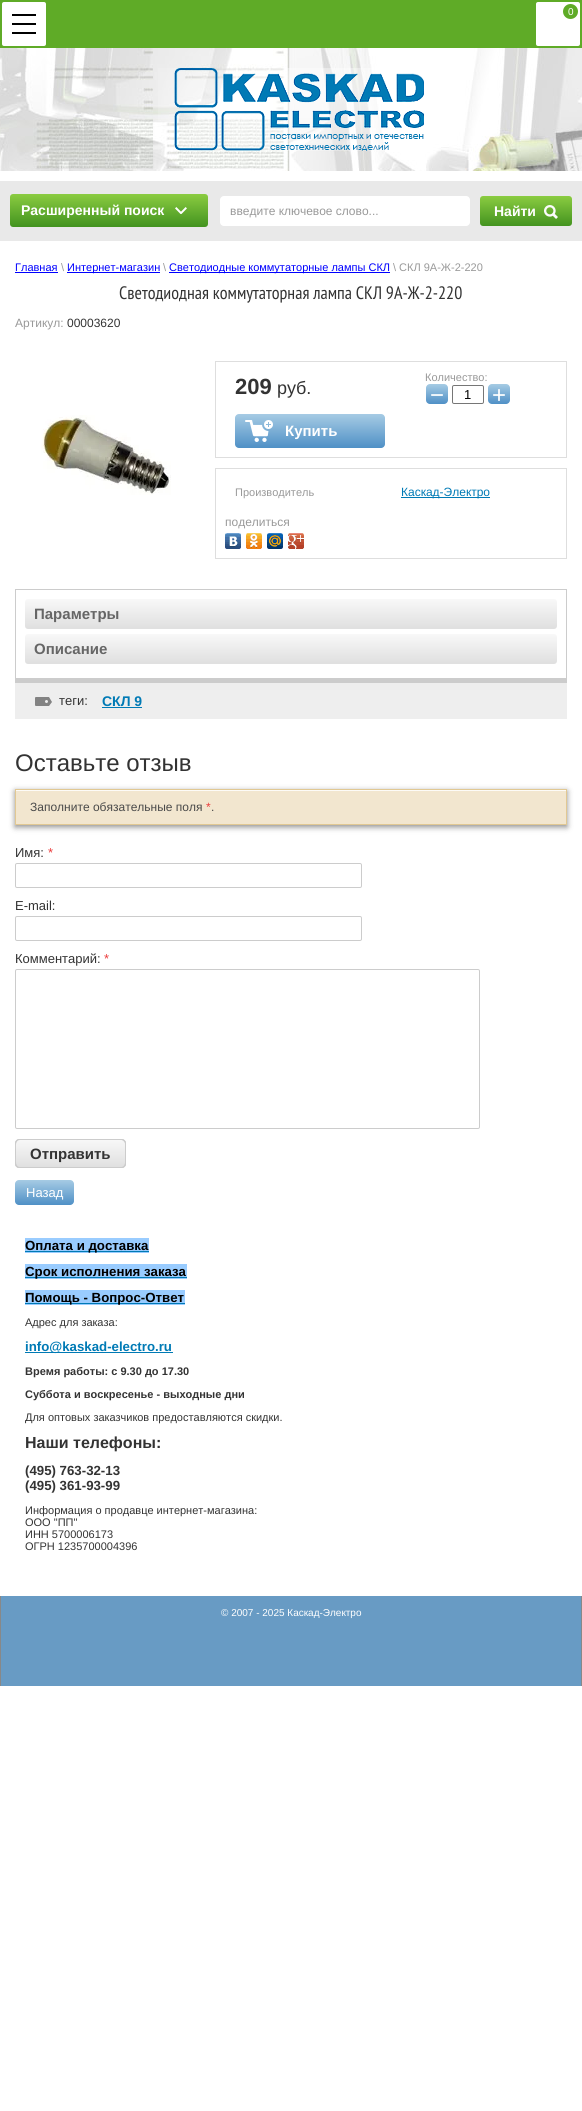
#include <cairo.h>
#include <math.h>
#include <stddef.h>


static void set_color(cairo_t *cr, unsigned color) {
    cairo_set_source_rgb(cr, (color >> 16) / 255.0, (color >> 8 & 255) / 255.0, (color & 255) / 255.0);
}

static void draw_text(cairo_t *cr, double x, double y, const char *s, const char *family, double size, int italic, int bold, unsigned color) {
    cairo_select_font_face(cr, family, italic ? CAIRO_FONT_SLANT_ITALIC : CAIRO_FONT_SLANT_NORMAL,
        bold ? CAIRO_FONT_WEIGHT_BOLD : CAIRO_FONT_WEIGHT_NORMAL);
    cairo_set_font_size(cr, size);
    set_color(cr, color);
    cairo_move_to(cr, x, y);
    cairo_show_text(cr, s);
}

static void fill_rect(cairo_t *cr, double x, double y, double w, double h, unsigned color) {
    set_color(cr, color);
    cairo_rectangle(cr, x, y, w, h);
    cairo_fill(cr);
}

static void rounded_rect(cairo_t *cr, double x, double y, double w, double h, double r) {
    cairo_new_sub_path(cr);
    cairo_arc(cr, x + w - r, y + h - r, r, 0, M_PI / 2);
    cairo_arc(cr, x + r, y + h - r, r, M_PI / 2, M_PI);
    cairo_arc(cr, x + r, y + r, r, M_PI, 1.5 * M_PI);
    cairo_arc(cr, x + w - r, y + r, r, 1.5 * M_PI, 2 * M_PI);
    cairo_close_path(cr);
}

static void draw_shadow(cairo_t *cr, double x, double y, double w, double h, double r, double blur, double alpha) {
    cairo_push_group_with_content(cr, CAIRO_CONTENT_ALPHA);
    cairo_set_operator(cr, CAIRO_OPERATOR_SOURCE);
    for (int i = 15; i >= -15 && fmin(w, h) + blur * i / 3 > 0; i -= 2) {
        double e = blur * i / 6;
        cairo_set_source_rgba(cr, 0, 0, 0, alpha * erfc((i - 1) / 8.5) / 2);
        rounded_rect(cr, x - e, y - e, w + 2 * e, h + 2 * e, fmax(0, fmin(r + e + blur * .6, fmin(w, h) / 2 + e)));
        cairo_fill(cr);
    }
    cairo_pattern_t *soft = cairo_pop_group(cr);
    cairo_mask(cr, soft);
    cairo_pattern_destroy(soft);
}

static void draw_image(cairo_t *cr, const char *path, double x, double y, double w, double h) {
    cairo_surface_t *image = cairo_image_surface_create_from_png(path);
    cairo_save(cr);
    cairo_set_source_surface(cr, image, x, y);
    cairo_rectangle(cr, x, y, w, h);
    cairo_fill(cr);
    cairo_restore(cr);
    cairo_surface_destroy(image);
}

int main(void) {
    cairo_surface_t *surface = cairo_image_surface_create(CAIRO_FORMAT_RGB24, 582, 2111);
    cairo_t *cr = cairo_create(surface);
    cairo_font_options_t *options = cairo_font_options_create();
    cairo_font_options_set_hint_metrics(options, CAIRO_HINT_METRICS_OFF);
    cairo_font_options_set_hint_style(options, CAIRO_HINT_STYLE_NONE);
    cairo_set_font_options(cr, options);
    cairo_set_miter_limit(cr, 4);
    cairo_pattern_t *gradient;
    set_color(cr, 0xFFFFFF);
    cairo_paint(cr);
    fill_rect(cr, 0, 0, 582, 48, 0x5FAB27);
    set_color(cr, 0xFFFFFF);
    rounded_rect(cr, 2, 2, 44, 44, 2);
    cairo_fill(cr);
    fill_rect(cr, 12, 14, 24, 2, 0x000000);
    fill_rect(cr, 12, 32, 24, 2, 0x000000);
    fill_rect(cr, 12, 23, 24, 2, 0x000000);
    set_color(cr, 0xFFFFFF);
    rounded_rect(cr, 536, 2, 44, 44, 2);
    cairo_fill(cr);
    set_color(cr, 0x5FAB27);
    cairo_arc(cr, 570.5, 11.5, 7.5, 0, 2 * M_PI);
    cairo_fill(cr);
    draw_text(cr, 568, 15, "0", "Liberation Sans", 10, 0, 0, 0xFFFFFF);
    draw_image(cr, "assets/img1.png", 0, 48, 582, 123);
    draw_image(cr, "assets/img2.png", 158, 68, 266, 83);
    fill_rect(cr, 0, 181, 582, 60, 0xE9E9E9);
    gradient = cairo_pattern_create_linear(109, 194, 109, 227);
    cairo_pattern_add_color_stop_rgba(gradient, 0, 0.545, 0.8, 0.255, 1);
    cairo_pattern_add_color_stop_rgba(gradient, 1, 0.259, 0.576, 0.122, 1);
    cairo_set_source(cr, gradient);
    cairo_pattern_destroy(gradient);
    rounded_rect(cr, 10, 194, 198, 33, 3);
    cairo_fill(cr);
    draw_text(cr, 21, 215, "Расширенный поиск", "Liberation Sans", 14, 0, 1, 0xFFFFFF);
    draw_image(cr, "assets/img3.png", 175, 207, 12, 7);
    rounded_rect(cr, 220, 196, 250, 30, 4);
    cairo_fill(cr);
    draw_text(cr, 230, 215, "введите ключевое слово...", "Liberation Sans", 12, 0, 0, 0x999999);
    gradient = cairo_pattern_create_linear(526, 196, 526, 226);
    cairo_pattern_add_color_stop_rgba(gradient, 0, 0.545, 0.8, 0.255, 1);
    cairo_pattern_add_color_stop_rgba(gradient, 1, 0.263, 0.576, 0.122, 1);
    cairo_set_source(cr, gradient);
    cairo_pattern_destroy(gradient);
    rounded_rect(cr, 480, 196, 92, 30, 3);
    cairo_fill(cr);
    draw_image(cr, "assets/img4.png", 544, 205, 14, 14);
    draw_text(cr, 494, 216, "Найти", "Liberation Sans", 14, 0, 1, 0xFFFFFF);
    draw_text(cr, 15, 271, "Главная", "Liberation Sans", 11, 0, 0, 0x0000FF);
    fill_rect(cr, 15, 272, 43, 1, 0x0000FF);
    draw_text(cr, 61, 271, "\\", "Liberation Sans", 11, 0, 0, 0x999999);
    fill_rect(cr, 67, 272, 93, 1, 0x0000FF);
    draw_text(cr, 67, 271, "Интернет-магазин", "Liberation Sans", 11, 0, 0, 0x0000FF);
    draw_text(cr, 163, 271, "\\", "Liberation Sans", 11, 0, 0, 0x999999);
    fill_rect(cr, 169, 272, 221, 1, 0x0000FF);
    draw_text(cr, 169, 271, "Светодиодные коммутаторные лампы СКЛ", "Liberation Sans", 11, 0, 0, 0x0000FF);
    draw_text(cr, 393, 271, "\\ СКЛ 9А-Ж-2-220", "Liberation Sans", 11, 0, 0, 0x999999);
    draw_text(cr, 119, 299, "Светодиодная коммутаторная лампа СКЛ 9А-Ж-2-220", "PT Sans Narrow", 18, 0, 0, 0x333333);
    draw_text(cr, 15, 327, "Артикул:", "Liberation Sans", 12, 0, 0, 0x999999);
    draw_text(cr, 67, 327, "00003620", "Liberation Sans", 12, 0, 0, 0x333333);
    draw_image(cr, "assets/img5.png", 41, 415, 130, 80);
    cairo_rectangle(cr, 215.5, 361.5, 351, 96);
    set_color(cr, 0xDEDEDE);
    cairo_set_line_width(cr, 1);
    cairo_stroke(cr);
    draw_text(cr, 235, 394, "209", "Liberation Sans", 22, 0, 1, 0x333333);
    draw_text(cr, 277, 394, "руб.", "Liberation Sans", 18, 0, 0, 0x333333);
    draw_text(cr, 425, 381, "Количество:", "Liberation Sans", 11, 0, 0, 0x999999);
    gradient = cairo_pattern_create_linear(437, 384, 437, 404);
    cairo_pattern_add_color_stop_rgba(gradient, 0, 0.651, 0.796, 0.894, 1);
    cairo_pattern_add_color_stop_rgba(gradient, 1, 0.31, 0.565, 0.776, 1);
    cairo_set_source(cr, gradient);
    cairo_pattern_destroy(gradient);
    rounded_rect(cr, 426, 384, 22, 20, 4);
    cairo_fill(cr);
    draw_text(cr, 430, 403, "−", "Liberation Sans", 24, 0, 0, 0xFFFFFF);
    rounded_rect(cr, 452.5, 385.5, 31, 18, 1.5);
    set_color(cr, 0x767676);
    cairo_stroke(cr);
    draw_text(cr, 464, 399, "1", "Liberation Sans", 13, 0, 0, 0x000000);
    gradient = cairo_pattern_create_linear(499, 384, 499, 404);
    cairo_pattern_add_color_stop_rgba(gradient, 0, 0.651, 0.796, 0.894, 1);
    cairo_pattern_add_color_stop_rgba(gradient, 1, 0.31, 0.565, 0.776, 1);
    cairo_set_source(cr, gradient);
    cairo_pattern_destroy(gradient);
    rounded_rect(cr, 488, 384, 22, 20, 4);
    cairo_fill(cr);
    draw_text(cr, 492, 403, "+", "Liberation Sans", 24, 0, 0, 0xFFFFFF);
    gradient = cairo_pattern_create_linear(310, 414, 310, 448);
    cairo_pattern_add_color_stop_rgba(gradient, 0, 0.651, 0.796, 0.894, 1);
    cairo_pattern_add_color_stop_rgba(gradient, 1, 0.31, 0.565, 0.776, 1);
    cairo_set_source(cr, gradient);
    cairo_pattern_destroy(gradient);
    rounded_rect(cr, 235, 414, 150, 34, 4);
    cairo_fill(cr);
    draw_image(cr, "assets/img6.png", 245, 420, 28, 22);
    draw_text(cr, 285, 436, "Купить", "Liberation Sans", 15, 0, 1, 0xFFFFFF);
    cairo_rectangle(cr, 215.5, 468.5, 351, 90);
    set_color(cr, 0xDEDEDE);
    cairo_stroke(cr);
    draw_text(cr, 235, 496, "Производитель", "Liberation Sans", 11, 0, 0, 0x999999);
    fill_rect(cr, 401, 497, 89, 1, 0x007AB5);
    draw_text(cr, 401, 496, "Каскад-Электро", "Liberation Sans", 12, 0, 0, 0x007AB5);
    draw_text(cr, 225, 526, "поделиться", "Liberation Sans", 12, 0, 0, 0x999999);
    draw_image(cr, "assets/img7.png", 225, 533, 16, 16);
    draw_image(cr, "assets/img8.png", 246, 533, 16, 16);
    draw_image(cr, "assets/img9.png", 267, 533, 16, 16);
    draw_image(cr, "assets/img10.png", 288, 533, 16, 16);
    fill_rect(cr, 15, 589, 552, 1, 0xCCCCCC);
    fill_rect(cr, 566, 589, 1, 94, 0xCCCCCC);
    fill_rect(cr, 15, 678, 552, 5, 0xCCCCCC);
    fill_rect(cr, 15, 589, 1, 94, 0xCCCCCC);
    gradient = cairo_pattern_create_linear(291, 599, 291, 629);
    cairo_pattern_add_color_stop_rgba(gradient, 0, 0.973, 0.973, 0.973, 1);
    cairo_pattern_add_color_stop_rgba(gradient, 1, 0.875, 0.875, 0.875, 1);
    cairo_set_source(cr, gradient);
    cairo_pattern_destroy(gradient);
    rounded_rect(cr, 25, 599, 532, 30, 3);
    cairo_fill(cr);
    draw_text(cr, 34, 619, "Параметры", "Liberation Sans", 15, 0, 1, 0x666666);
    gradient = cairo_pattern_create_linear(291, 634, 291, 664);
    cairo_pattern_add_color_stop_rgba(gradient, 0, 0.973, 0.973, 0.973, 1);
    cairo_pattern_add_color_stop_rgba(gradient, 1, 0.875, 0.875, 0.875, 1);
    cairo_set_source(cr, gradient);
    cairo_pattern_destroy(gradient);
    rounded_rect(cr, 25, 634, 532, 30, 3);
    cairo_fill(cr);
    draw_text(cr, 34, 654, "Описание", "Liberation Sans", 15, 0, 1, 0x666666);
    fill_rect(cr, 15, 683, 552, 36, 0xEEEEEE);
    draw_image(cr, "assets/img11.png", 35, 697, 17, 9);
    draw_text(cr, 59, 705, "теги:", "Liberation Sans", 13, 0, 0, 0x333333);
    draw_text(cr, 102, 706, "СКЛ 9", "Liberation Sans", 14, 0, 1, 0x007AB5);
    fill_rect(cr, 102, 707, 40, 1, 0x007AB5);
    draw_text(cr, 15, 771, "Оставьте отзыв", "Liberation Sans", 24, 0, 0, 0x333333);
    set_color(cr, 0x000000);
    draw_shadow(cr, 15, 791, 552, 36, 0, 3, 0.45);
    fill_rect(cr, 16, 791, 550, 33, 0xF2E6CF);
    fill_rect(cr, 16, 790, 550, 1, 0xFDFBF7);
    cairo_rectangle(cr, 15.5, 789.5, 551, 35);
    set_color(cr, 0xE1C893);
    cairo_stroke(cr);
    draw_text(cr, 30, 811, "Заполните обязательные поля", "Liberation Sans", 12, 0, 0, 0x494949);
    draw_text(cr, 206, 811, "*", "Liberation Sans", 12, 0, 0, 0xEB3C3C);
    draw_text(cr, 211, 811, ".", "Liberation Sans", 12, 0, 0, 0x494949);
    draw_text(cr, 15, 857, "Имя:", "Liberation Sans", 13, 0, 0, 0x333333);
    draw_text(cr, 48, 857, "*", "Liberation Sans", 13, 0, 0, 0xEB3C3C);
    rounded_rect(cr, 15.5, 863.5, 346, 24, 1.5);
    set_color(cr, 0xCCCCCC);
    cairo_stroke(cr);
    draw_text(cr, 15, 910, "E-mail:", "Liberation Sans", 13, 0, 0, 0x333333);
    rounded_rect(cr, 15.5, 916.5, 346, 24, 1.5);
    set_color(cr, 0xCCCCCC);
    cairo_stroke(cr);
    draw_text(cr, 15, 963, "Комментарий:", "Liberation Sans", 13, 0, 0, 0x333333);
    draw_text(cr, 104, 963, "*", "Liberation Sans", 13, 0, 0, 0xEB3C3C);
    rounded_rect(cr, 15.5, 969.5, 464, 159, 1.5);
    set_color(cr, 0xCCCCCC);
    cairo_stroke(cr);
    gradient = cairo_pattern_create_linear(71, 1139, 71, 1168);
    cairo_pattern_add_color_stop_rgba(gradient, 0, 0.973, 0.973, 0.973, 1);
    cairo_pattern_add_color_stop_rgba(gradient, 1, 0.875, 0.875, 0.875, 1);
    cairo_set_source(cr, gradient);
    cairo_pattern_destroy(gradient);
    rounded_rect(cr, 15, 1139, 111, 29, 4);
    cairo_fill(cr);
    set_color(cr, 0xCCCCCC);
    cairo_new_path(cr);
    cairo_move_to(cr, 17, 1140);
    cairo_curve_to(cr, 16, 1140, 15, 1142, 15, 1143);
    cairo_line_to(cr, 15, 1164);
    cairo_curve_to(cr, 15, 1166, 17, 1168, 19, 1168);
    cairo_line_to(cr, 122, 1168);
    cairo_curve_to(cr, 123, 1168, 125, 1167, 125, 1166);
    cairo_line_to(cr, 123, 1167);
    cairo_line_to(cr, 20, 1167);
    cairo_curve_to(cr, 14, 1167, 16, 1156, 16, 1152);
    cairo_curve_to(cr, 16, 1149, 15, 1142, 17, 1140);
    cairo_close_path(cr);
    cairo_fill(cr);
    cairo_new_path(cr);
    cairo_move_to(cr, 18, 1140);
    cairo_line_to(cr, 121, 1140);
    cairo_curve_to(cr, 123, 1140, 125, 1142, 125, 1144);
    cairo_line_to(cr, 125, 1165);
    cairo_line_to(cr, 124, 1167);
    cairo_curve_to(cr, 125, 1167, 126, 1165, 126, 1164);
    cairo_line_to(cr, 126, 1143);
    cairo_curve_to(cr, 126, 1141, 124, 1139, 122, 1139);
    cairo_line_to(cr, 19, 1139);
    cairo_curve_to(cr, 18, 1139, 16, 1140, 16, 1141);
    cairo_close_path(cr);
    cairo_fill(cr);
    cairo_new_path(cr);
    cairo_move_to(cr, 16, 1166);
    cairo_curve_to(cr, 16, 1167, 18, 1168, 19, 1168);
    cairo_line_to(cr, 122, 1168);
    cairo_curve_to(cr, 124, 1168, 126, 1166, 126, 1164);
    cairo_line_to(cr, 126, 1143);
    cairo_curve_to(cr, 126, 1142, 125, 1140, 124, 1140);
    cairo_curve_to(cr, 126, 1142, 125, 1149, 125, 1152);
    cairo_curve_to(cr, 125, 1156, 127, 1167, 121, 1167);
    cairo_line_to(cr, 18, 1167);
    cairo_close_path(cr);
    cairo_fill(cr);
    cairo_new_path(cr);
    cairo_move_to(cr, 20, 1140);
    cairo_line_to(cr, 123, 1140);
    cairo_line_to(cr, 125, 1141);
    cairo_curve_to(cr, 125, 1140, 123, 1139, 122, 1139);
    cairo_line_to(cr, 19, 1139);
    cairo_curve_to(cr, 17, 1139, 15, 1141, 15, 1143);
    cairo_line_to(cr, 15, 1164);
    cairo_curve_to(cr, 15, 1165, 16, 1167, 17, 1167);
    cairo_curve_to(cr, 15, 1165, 16, 1158, 16, 1154);
    cairo_curve_to(cr, 16, 1151, 14, 1140, 20, 1140);
    cairo_close_path(cr);
    cairo_fill(cr);
    draw_text(cr, 30, 1159, "Отправить", "Liberation Sans", 15, 0, 1, 0x333333);
    gradient = cairo_pattern_create_linear(45, 1180, 45, 1205);
    cairo_pattern_add_color_stop_rgba(gradient, 0, 0.651, 0.796, 0.894, 1);
    cairo_pattern_add_color_stop_rgba(gradient, 1, 0.31, 0.565, 0.776, 1);
    cairo_set_source(cr, gradient);
    cairo_pattern_destroy(gradient);
    rounded_rect(cr, 15, 1180, 59, 25, 4);
    cairo_fill(cr);
    draw_text(cr, 26, 1197, "Назад", "Liberation Sans", 13, 0, 0, 0xFFFFFF);
    fill_rect(cr, 25, 1238, 124, 15, 0x99CCFF);
    fill_rect(cr, 25, 1251, 124, 1, 0x007AB5);
    draw_text(cr, 25, 1250, "Оплата и доставка", "Liberation Sans", 13.25, 0, 1, 0x000000);
    fill_rect(cr, 25, 1264, 162, 15, 0x99CCFF);
    fill_rect(cr, 25, 1277, 162, 1, 0x007AB5);
    draw_text(cr, 25, 1276, "Срок исполнения заказа", "Liberation Sans", 13.25, 0, 1, 0x000000);
    fill_rect(cr, 25, 1290, 160, 15, 0x99CCFF);
    fill_rect(cr, 25, 1303, 160, 1, 0x007AB5);
    draw_text(cr, 25, 1302, "Помощь - Вопрос-Ответ", "Liberation Sans", 13.25, 0, 1, 0x000000);
    draw_text(cr, 25, 1326, "Адрес для заказа:", "Liberation Sans", 11, 0, 0, 0x333333);
    fill_rect(cr, 25, 1352, 148, 1, 0x007AB5);
    draw_text(cr, 25, 1351, "info@kaskad-electro.ru", "Liberation Sans", 13.25, 0, 1, 0x007AB5);
    draw_text(cr, 25, 1375, "Время работы: с 9.30 до 17.30", "Liberation Sans", 11, 0, 1, 0x333333);
    draw_text(cr, 25, 1398, "Суббота и воскресенье - выходные дни", "Liberation Sans", 11, 0, 1, 0x333333);
    draw_text(cr, 25, 1421, "Для оптовых заказчиков предоставляются скидки.", "Liberation Sans", 11, 0, 0, 0x333333);
    draw_text(cr, 25, 1448, "Наши телефоны:", "Liberation Sans", 16, 0, 1, 0x333333);
    draw_text(cr, 25, 1475, "(495) 763-32-13", "Liberation Sans", 13.25, 0, 1, 0x333333);
    draw_text(cr, 25, 1490, "(495) 361-93-99", "Liberation Sans", 13.25, 0, 1, 0x333333);
    draw_text(cr, 25, 1514, "Информация о продавце интернет-магазина:", "Liberation Sans", 11, 0, 0, 0x333333);
    draw_text(cr, 25, 1526, "ООО \"ПП\"", "Liberation Sans", 11, 0, 0, 0x333333);
    draw_text(cr, 25, 1538, "ИНН 5700006173", "Liberation Sans", 11, 0, 0, 0x333333);
    draw_text(cr, 25, 1550, "ОГРН 1235700004396", "Liberation Sans", 11, 0, 0, 0x333333);
    fill_rect(cr, 1, 1596, 580, 90, 0x689BC4);
    fill_rect(cr, 581, 1596, 1, 90, 0x888888);
    fill_rect(cr, 0, 1596, 1, 90, 0x888888);
    draw_text(cr, 221, 1616, "© 2007 - 2025 Каскад-Электро", "Liberation Sans", 10, 0, 0, 0xFFFFFF);
    cairo_surface_write_to_png(surface, "output.png");
    cairo_font_options_destroy(options);
    cairo_destroy(cr);
    cairo_surface_destroy(surface);
    return 0;
}
